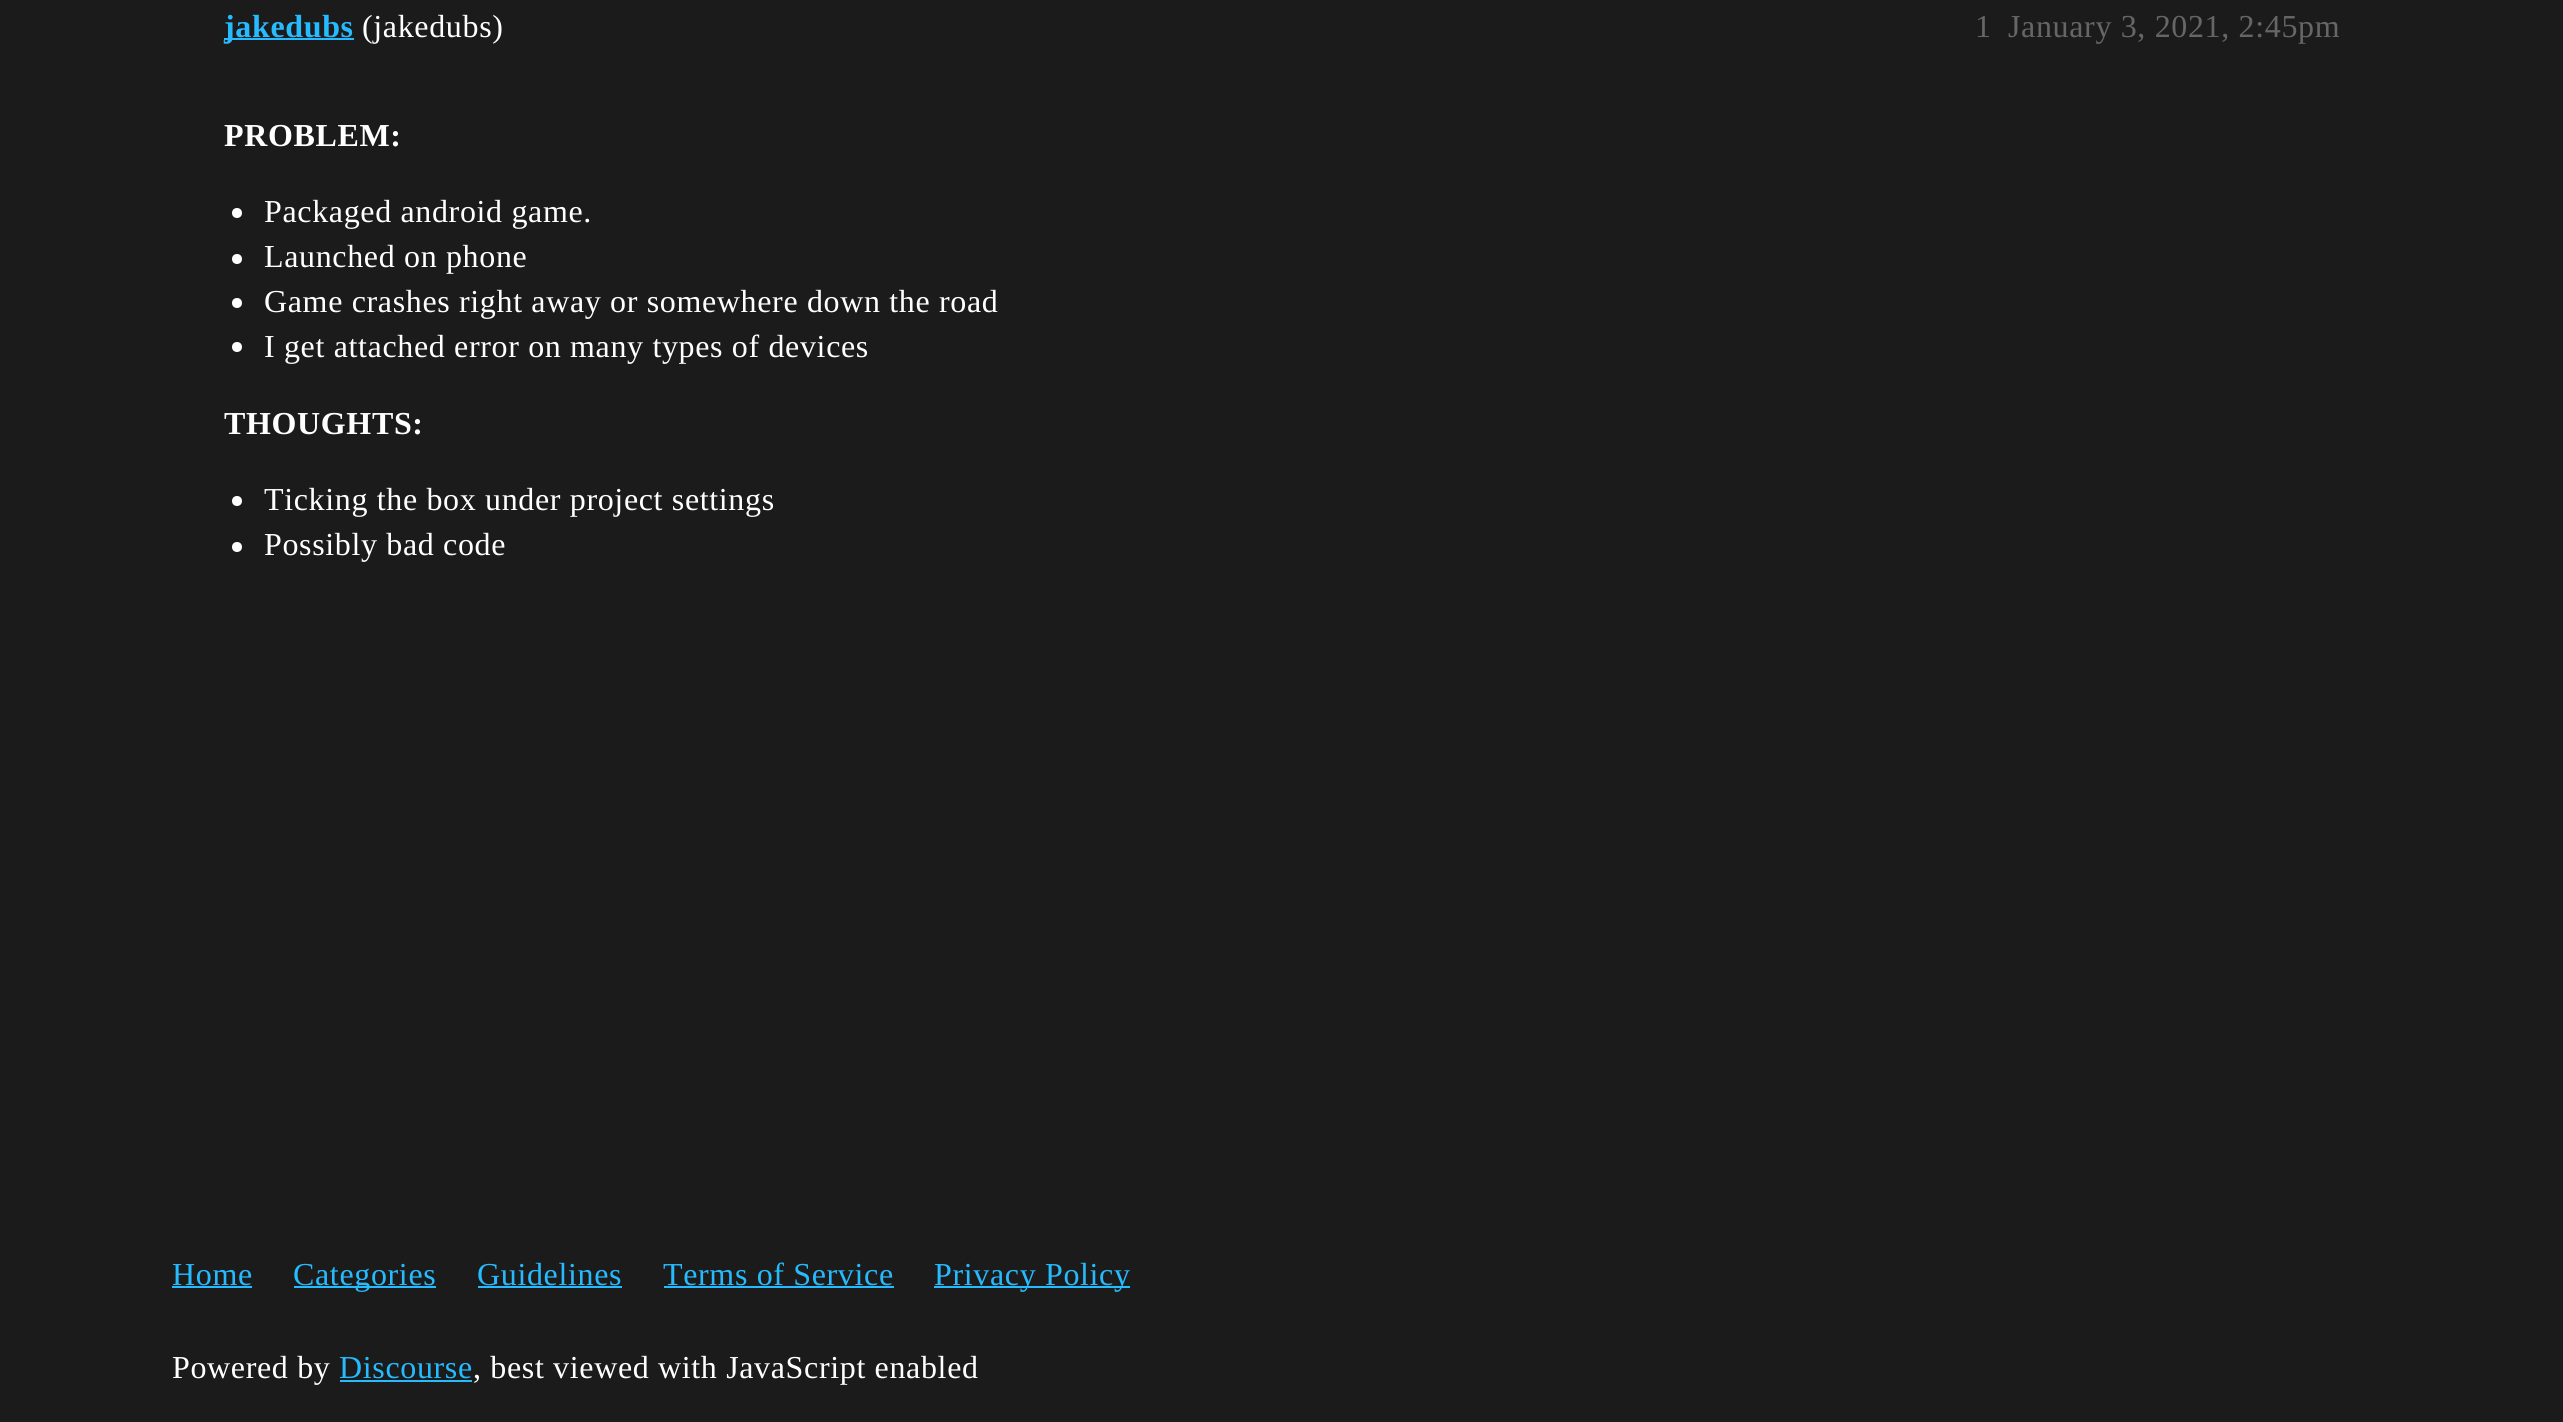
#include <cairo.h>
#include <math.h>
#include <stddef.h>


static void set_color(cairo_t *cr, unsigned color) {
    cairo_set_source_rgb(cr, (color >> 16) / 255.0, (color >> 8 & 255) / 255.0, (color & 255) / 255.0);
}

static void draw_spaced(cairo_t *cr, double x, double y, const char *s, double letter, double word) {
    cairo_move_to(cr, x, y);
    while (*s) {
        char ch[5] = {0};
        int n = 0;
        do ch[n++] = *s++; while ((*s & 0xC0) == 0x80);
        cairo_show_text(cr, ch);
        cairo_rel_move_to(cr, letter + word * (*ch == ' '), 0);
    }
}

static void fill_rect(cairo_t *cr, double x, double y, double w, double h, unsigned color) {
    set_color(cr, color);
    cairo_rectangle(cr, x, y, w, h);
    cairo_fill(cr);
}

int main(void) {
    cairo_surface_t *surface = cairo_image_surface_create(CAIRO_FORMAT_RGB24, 2563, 1422);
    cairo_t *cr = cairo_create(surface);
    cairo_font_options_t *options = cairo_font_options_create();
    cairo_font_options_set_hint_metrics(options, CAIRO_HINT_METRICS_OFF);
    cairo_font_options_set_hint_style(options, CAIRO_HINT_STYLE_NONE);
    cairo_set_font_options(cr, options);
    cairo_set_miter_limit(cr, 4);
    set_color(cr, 0x1B1B1B);
    cairo_paint(cr);
    fill_rect(cr, 224, 38, 130, 2, 0x26BBFF);
    cairo_select_font_face(cr, "Liberation Serif", CAIRO_FONT_SLANT_NORMAL, CAIRO_FONT_WEIGHT_BOLD);
    cairo_set_font_size(cr, 32);
    draw_spaced(cr, 224, 37, "jakedubs", 0.65, 0);
    cairo_select_font_face(cr, "Liberation Serif", CAIRO_FONT_SLANT_NORMAL, CAIRO_FONT_WEIGHT_NORMAL);
    set_color(cr, 0xFFFFFF);
    draw_spaced(cr, 362, 37, "(jakedubs)", 0.65, 0);
    set_color(cr, 0x666666);
    draw_spaced(cr, 1975, 37, "1", 0.65, 0);
    draw_spaced(cr, 2008, 37, "January 3, 2021, 2:45pm", 0.65, 0);
    cairo_select_font_face(cr, "Liberation Serif", CAIRO_FONT_SLANT_NORMAL, CAIRO_FONT_WEIGHT_BOLD);
    set_color(cr, 0xFFFFFF);
    draw_spaced(cr, 224, 146, "PROBLEM:", 0.65, 0);
    cairo_new_path(cr);
    cairo_arc(cr, 237, 213, 5, 0, 2 * M_PI);
    cairo_fill(cr);
    cairo_select_font_face(cr, "Liberation Serif", CAIRO_FONT_SLANT_NORMAL, CAIRO_FONT_WEIGHT_NORMAL);
    draw_spaced(cr, 264, 222, "Packaged android game.", 0.65, 0);
    cairo_new_path(cr);
    cairo_arc(cr, 237, 259, 5, 0, 2 * M_PI);
    cairo_fill(cr);
    draw_spaced(cr, 264, 267, "Launched on phone", 0.65, 0);
    cairo_new_path(cr);
    cairo_arc(cr, 237, 303, 5, 0, 2 * M_PI);
    cairo_fill(cr);
    draw_spaced(cr, 264, 312, "Game crashes right away or somewhere down the road", 0.65, 0);
    cairo_new_path(cr);
    cairo_arc(cr, 237, 347, 5, 0, 2 * M_PI);
    cairo_fill(cr);
    draw_spaced(cr, 264, 357, "I get attached error on many types of devices", 0.65, 0);
    cairo_select_font_face(cr, "Liberation Serif", CAIRO_FONT_SLANT_NORMAL, CAIRO_FONT_WEIGHT_BOLD);
    draw_spaced(cr, 224, 434, "THOUGHTS:", 0.65, 0);
    cairo_new_path(cr);
    cairo_arc(cr, 237, 501, 5, 0, 2 * M_PI);
    cairo_fill(cr);
    cairo_select_font_face(cr, "Liberation Serif", CAIRO_FONT_SLANT_NORMAL, CAIRO_FONT_WEIGHT_NORMAL);
    draw_spaced(cr, 264, 510, "Ticking the box under project settings", 0.65, 0);
    cairo_new_path(cr);
    cairo_arc(cr, 237, 547, 5, 0, 2 * M_PI);
    cairo_fill(cr);
    draw_spaced(cr, 264, 555, "Possibly bad code", 0.65, 0);
    set_color(cr, 0x26BBFF);
    draw_spaced(cr, 172, 1285, "Home", 0.65, 0);
    fill_rect(cr, 172, 1286, 80, 2, 0x26BBFF);
    fill_rect(cr, 294, 1286, 142, 2, 0x26BBFF);
    draw_spaced(cr, 293, 1285, "Categories", 0.65, 0);
    draw_spaced(cr, 477, 1285, "Guidelines", 0.65, 0);
    fill_rect(cr, 478, 1286, 144, 2, 0x26BBFF);
    draw_spaced(cr, 663, 1285, "Terms of Service", 0.65, 0);
    fill_rect(cr, 664, 1286, 230, 2, 0x26BBFF);
    fill_rect(cr, 934, 1286, 196, 2, 0x26BBFF);
    draw_spaced(cr, 934, 1285, "Privacy Policy", 0.65, 0);
    set_color(cr, 0xFFFFFF);
    draw_spaced(cr, 172, 1378, "Powered by", 0.65, 0);
    set_color(cr, 0x26BBFF);
    draw_spaced(cr, 339, 1378, "Discourse", 0.65, 0);
    fill_rect(cr, 340, 1380, 132, 2, 0x26BBFF);
    set_color(cr, 0xFFFFFF);
    draw_spaced(cr, 473, 1378, ", best viewed with JavaScript enabled", 0.65, 0);
    cairo_surface_write_to_png(surface, "output.png");
    cairo_font_options_destroy(options);
    cairo_destroy(cr);
    cairo_surface_destroy(surface);
    return 0;
}
